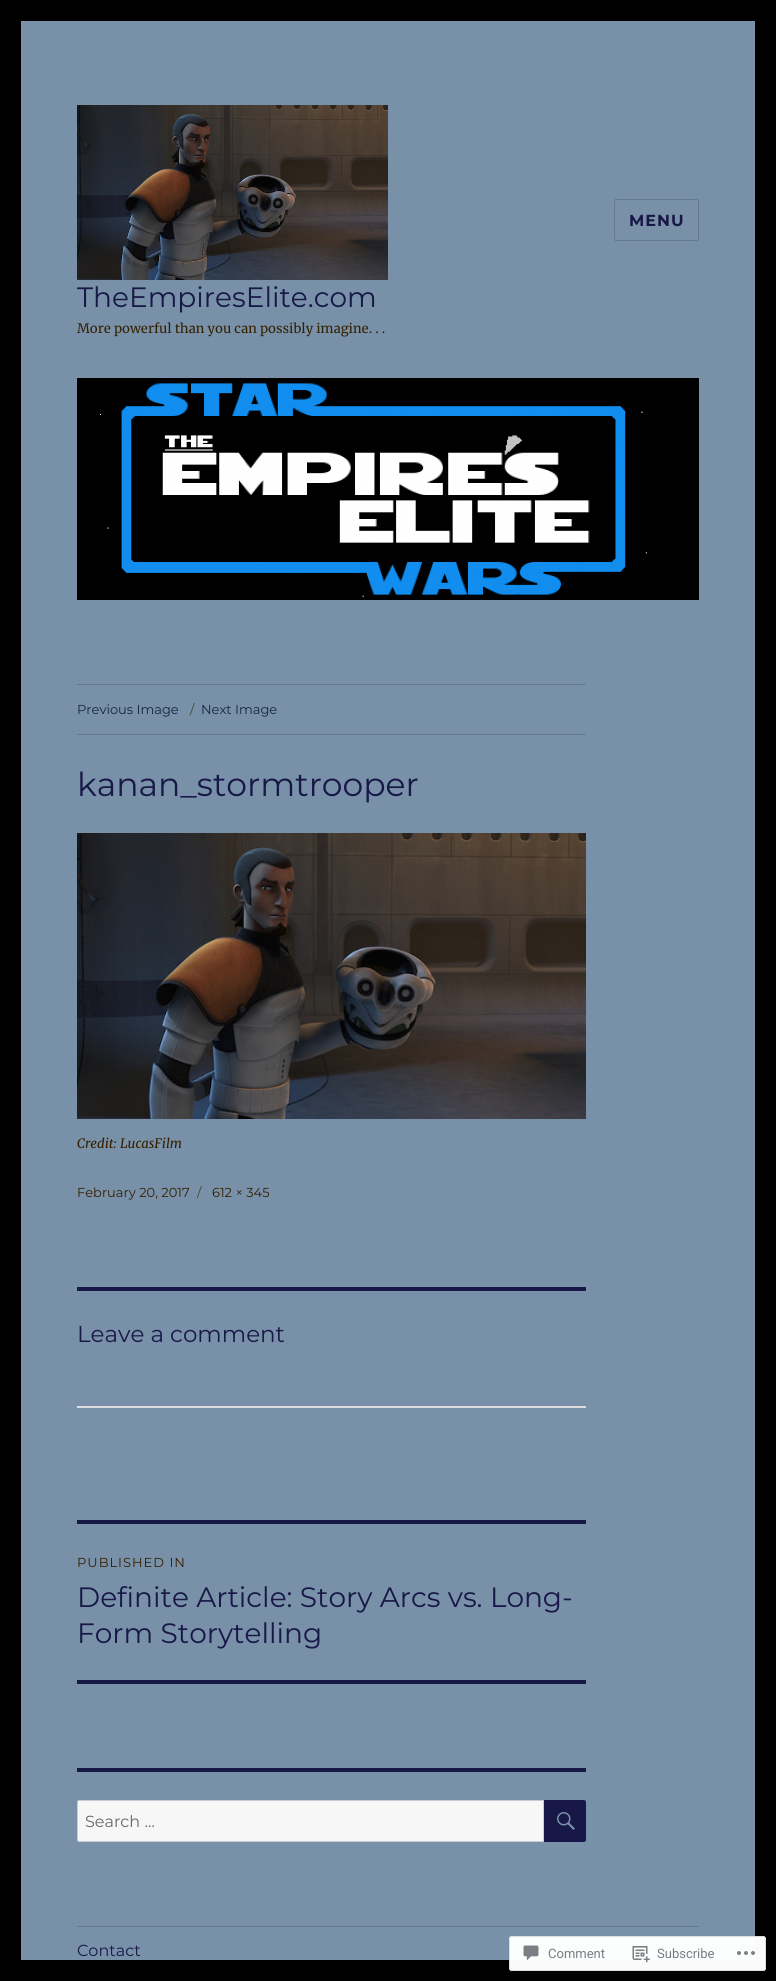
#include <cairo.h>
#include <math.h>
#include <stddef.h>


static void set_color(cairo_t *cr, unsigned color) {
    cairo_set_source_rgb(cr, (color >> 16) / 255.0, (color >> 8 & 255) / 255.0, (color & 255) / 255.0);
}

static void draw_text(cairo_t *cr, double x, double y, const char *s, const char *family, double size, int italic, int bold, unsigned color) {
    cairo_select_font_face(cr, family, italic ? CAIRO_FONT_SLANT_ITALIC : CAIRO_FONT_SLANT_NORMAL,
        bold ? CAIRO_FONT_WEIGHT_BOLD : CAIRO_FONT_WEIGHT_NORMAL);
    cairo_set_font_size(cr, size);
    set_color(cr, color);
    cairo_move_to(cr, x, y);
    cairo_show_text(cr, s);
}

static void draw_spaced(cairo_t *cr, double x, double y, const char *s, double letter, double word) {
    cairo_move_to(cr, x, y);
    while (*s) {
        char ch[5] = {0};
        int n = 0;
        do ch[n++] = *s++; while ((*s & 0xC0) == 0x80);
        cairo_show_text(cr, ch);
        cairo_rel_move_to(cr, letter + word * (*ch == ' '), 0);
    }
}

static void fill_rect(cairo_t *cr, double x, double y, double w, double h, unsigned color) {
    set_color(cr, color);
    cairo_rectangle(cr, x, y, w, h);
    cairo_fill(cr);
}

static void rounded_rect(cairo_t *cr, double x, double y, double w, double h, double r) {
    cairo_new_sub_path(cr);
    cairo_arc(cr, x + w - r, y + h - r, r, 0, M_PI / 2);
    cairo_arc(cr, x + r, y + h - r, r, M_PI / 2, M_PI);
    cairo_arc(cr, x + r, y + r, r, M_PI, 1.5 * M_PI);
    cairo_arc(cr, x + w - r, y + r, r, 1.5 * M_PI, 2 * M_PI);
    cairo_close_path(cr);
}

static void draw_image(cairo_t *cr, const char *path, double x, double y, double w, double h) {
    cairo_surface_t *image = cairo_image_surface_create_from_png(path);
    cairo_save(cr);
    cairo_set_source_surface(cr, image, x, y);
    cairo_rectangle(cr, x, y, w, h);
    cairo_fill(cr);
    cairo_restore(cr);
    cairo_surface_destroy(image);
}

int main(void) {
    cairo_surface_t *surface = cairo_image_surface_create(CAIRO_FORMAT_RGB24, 776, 1981);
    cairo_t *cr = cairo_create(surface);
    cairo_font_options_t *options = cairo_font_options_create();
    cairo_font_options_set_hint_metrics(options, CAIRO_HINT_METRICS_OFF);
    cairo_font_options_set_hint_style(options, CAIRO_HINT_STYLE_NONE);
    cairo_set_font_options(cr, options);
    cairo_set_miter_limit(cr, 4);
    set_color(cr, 0x000000);
    cairo_paint(cr);
    fill_rect(cr, 21, 21, 734, 1939, 0x7890A8);
    rounded_rect(cr, 614.5, 199.5, 84, 41, 1.5);
    set_color(cr, 0x657895);
    cairo_set_line_width(cr, 1);
    cairo_stroke(cr);
    cairo_select_font_face(cr, "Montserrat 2 Thin", CAIRO_FONT_SLANT_NORMAL, CAIRO_FONT_WEIGHT_NORMAL);
    cairo_set_font_size(cr, 16);
    set_color(cr, 0x181848);
    draw_spaced(cr, 629, 226, "MENU", 1, 0);
    draw_image(cr, "assets/img1.png", 77, 105, 311, 175);
    draw_text(cr, 77, 307, "TheEmpiresElite.com", "Montserrat Thin", 28, 0, 0, 0x181848);
    draw_text(cr, 77, 333, "More powerful than you can possibly imagine. . .", "Merriweather", 13, 0, 0, 0x332000);
    draw_image(cr, "assets/img2.png", 77, 378, 622, 222);
    fill_rect(cr, 77, 684, 509, 1, 0x657895);
    fill_rect(cr, 77, 734, 509, 1, 0x657895);
    draw_text(cr, 77, 714, "Previous Image", "Montserrat Thin", 13, 0, 0, 0x172643);
    draw_text(cr, 190, 714, "/", "Montserrat Thin", 13, 0, 0, 0x484232);
    draw_text(cr, 201, 714, "Next Image", "Montserrat Thin", 13, 0, 0, 0x172643);
    draw_text(cr, 77, 796, "kanan_stormtrooper", "Montserrat Thin", 33, 0, 0, 0x181848);
    draw_image(cr, "assets/img3.png", 77, 833, 509, 286);
    draw_text(cr, 77, 1148, "Credit: LucasFilm", "Merriweather", 13, 1, 0, 0x332000);
    draw_text(cr, 77, 1197, "February 20, 2017", "Montserrat Thin", 13, 0, 0, 0x332000);
    draw_text(cr, 197, 1197, "/", "Montserrat Thin", 13, 0, 0, 0x484232);
    draw_text(cr, 212, 1197, "612 × 345", "Montserrat Thin", 13, 0, 0, 0x332000);
    fill_rect(cr, 77, 1287, 509, 4, 0x181848);
    draw_text(cr, 77, 1342, "Leave a comment", "Montserrat Thin", 23, 0, 0, 0x181848);
    fill_rect(cr, 77, 1406, 509, 2, 0xDCDCDE);
    fill_rect(cr, 77, 1520, 509, 4, 0x181848);
    fill_rect(cr, 77, 1680, 509, 4, 0x181848);
    cairo_set_font_size(cr, 13);
    set_color(cr, 0x332000);
    draw_spaced(cr, 77, 1567, "PUBLISHED IN", 1, 0);
    draw_text(cr, 77, 1607, "Definite Article: Story Arcs vs. Long-", "Montserrat Thin", 28, 0, 0, 0x181848);
    draw_text(cr, 77, 1643, "Form Storytelling", "Montserrat Thin", 28, 0, 0, 0x181848);
    fill_rect(cr, 77, 1768, 509, 4, 0x181848);
    set_color(cr, 0xF7F7F7);
    cairo_new_path(cr);
    cairo_move_to(cr, 79, 1800);
    cairo_line_to(cr, 544, 1800);
    cairo_line_to(cr, 544, 1842);
    cairo_line_to(cr, 79, 1842);
    cairo_curve_to(cr, 78, 1842, 77, 1841, 77, 1840);
    cairo_line_to(cr, 77, 1802);
    cairo_curve_to(cr, 77, 1801, 78, 1800, 79, 1800);
    cairo_close_path(cr);
    cairo_fill(cr);
    cairo_new_path(cr);
    cairo_move_to(cr, 79, 1800.5);
    cairo_line_to(cr, 543.5, 1800.5);
    cairo_line_to(cr, 543.5, 1841.5);
    cairo_line_to(cr, 79, 1841.5);
    cairo_curve_to(cr, 78, 1841.5, 77.5, 1841, 77.5, 1840);
    cairo_line_to(cr, 77.5, 1802);
    cairo_curve_to(cr, 77.5, 1801, 78, 1800.5, 79, 1800.5);
    cairo_close_path(cr);
    cairo_set_source_rgba(cr, 0.094, 0.094, 0.282, 0.2);
    cairo_stroke(cr);
    draw_text(cr, 85, 1827, "Search …", "Montserrat Thin", 16, 0, 0, 0x686868);
    set_color(cr, 0x181848);
    cairo_new_path(cr);
    cairo_move_to(cr, 544, 1800);
    cairo_line_to(cr, 584, 1800);
    cairo_curve_to(cr, 585, 1800, 586, 1801, 586, 1802);
    cairo_line_to(cr, 586, 1840);
    cairo_curve_to(cr, 586, 1841, 585, 1842, 584, 1842);
    cairo_line_to(cr, 544, 1842);
    cairo_close_path(cr);
    cairo_fill(cr);
    draw_image(cr, "assets/img4.png", 557, 1812, 18, 18);
    fill_rect(cr, 77, 1926, 622, 1, 0x657895);
    draw_text(cr, 77, 1956, "Contact", "Montserrat Thin", 16, 0, 0, 0x181848);
    cairo_set_source_rgba(cr, 1, 1, 1, 0.98);
    rounded_rect(cr, 509, 1936, 257, 35, 3);
    cairo_fill(cr);
    rounded_rect(cr, 509.5, 1936.5, 256, 34, 2.5);
    cairo_set_source_rgba(cr, 0.863, 0.863, 0.871, 0.98);
    cairo_stroke(cr);
    draw_image(cr, "assets/img5.png", 523, 1945, 16, 16);
    draw_text(cr, 548, 1958, "Comment", "Roboto", 13, 0, 0, 0x787C83);
    draw_image(cr, "assets/img6.png", 632, 1946, 18, 17);
    draw_text(cr, 657, 1958, "Subscribe", "Roboto", 13, 0, 0, 0x787C83);
    draw_image(cr, "assets/img7.png", 737, 1951, 18, 4);
    cairo_surface_write_to_png(surface, "output.png");
    cairo_font_options_destroy(options);
    cairo_destroy(cr);
    cairo_surface_destroy(surface);
    return 0;
}
